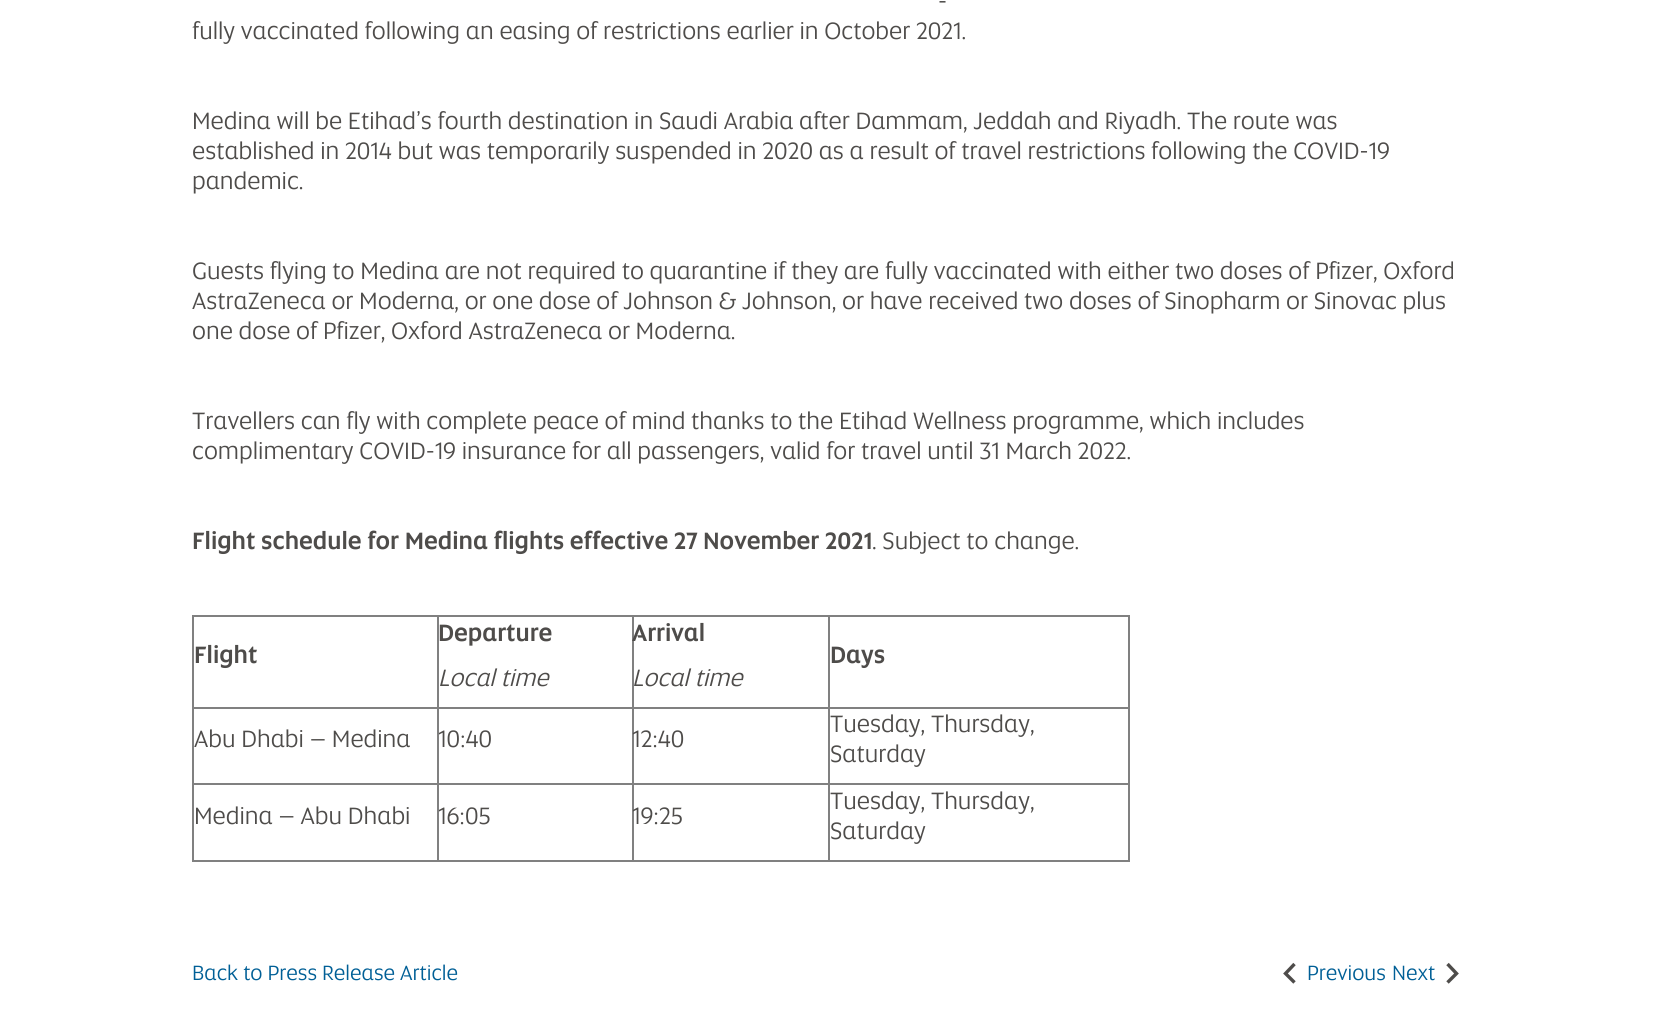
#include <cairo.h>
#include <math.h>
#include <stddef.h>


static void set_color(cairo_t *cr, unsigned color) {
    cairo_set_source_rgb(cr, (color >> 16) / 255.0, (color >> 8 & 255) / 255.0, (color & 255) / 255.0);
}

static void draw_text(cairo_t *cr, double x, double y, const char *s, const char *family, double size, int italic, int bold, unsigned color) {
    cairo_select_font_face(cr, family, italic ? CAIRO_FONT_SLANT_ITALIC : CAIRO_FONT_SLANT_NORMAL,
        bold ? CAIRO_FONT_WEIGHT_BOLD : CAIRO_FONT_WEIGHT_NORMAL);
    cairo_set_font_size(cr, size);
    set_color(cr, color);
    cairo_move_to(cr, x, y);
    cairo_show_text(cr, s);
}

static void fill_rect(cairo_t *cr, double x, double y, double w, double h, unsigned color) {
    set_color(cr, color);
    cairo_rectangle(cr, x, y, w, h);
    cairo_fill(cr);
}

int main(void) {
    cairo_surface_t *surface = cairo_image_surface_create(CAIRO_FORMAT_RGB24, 1656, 1011);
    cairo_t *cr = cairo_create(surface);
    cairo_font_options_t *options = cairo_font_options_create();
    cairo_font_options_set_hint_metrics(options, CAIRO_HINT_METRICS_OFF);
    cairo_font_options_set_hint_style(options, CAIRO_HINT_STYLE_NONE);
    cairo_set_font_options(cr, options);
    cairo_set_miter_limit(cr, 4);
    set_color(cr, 0xFFFFFF);
    cairo_paint(cr);
    draw_text(cr, 938, 9, "-", "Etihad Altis", 24, 0, 0, 0x4E4C4A);
    draw_text(cr, 192, 39, "fully vaccinated following an easing of restrictions earlier in October 2021.", "Etihad Altis", 24, 0, 0, 0x4E4C4A);
    draw_text(cr, 192, 129, "Medina will be Etihad’s fourth destination in Saudi Arabia after Dammam, Jeddah and Riyadh. The route was", "Etihad Altis", 24, 0, 0, 0x4E4C4A);
    draw_text(cr, 192, 159, "established in 2014 but was temporarily suspended in 2020 as a result of travel restrictions following the COVID-19", "Etihad Altis", 24, 0, 0, 0x4E4C4A);
    draw_text(cr, 192, 189, "pandemic.", "Etihad Altis", 24, 0, 0, 0x4E4C4A);
    draw_text(cr, 192, 279, "Guests flying to Medina are not required to quarantine if they are fully vaccinated with either two doses of Pfizer, Oxford", "Etihad Altis", 24, 0, 0, 0x4E4C4A);
    draw_text(cr, 192, 309, "AstraZeneca or Moderna, or one dose of Johnson & Johnson, or have received two doses of Sinopharm or Sinovac plus", "Etihad Altis", 24, 0, 0, 0x4E4C4A);
    draw_text(cr, 192, 339, "one dose of Pfizer, Oxford AstraZeneca or Moderna.", "Etihad Altis", 24, 0, 0, 0x4E4C4A);
    draw_text(cr, 192, 429, "Travellers can fly with complete peace of mind thanks to the Etihad Wellness programme, which includes", "Etihad Altis", 24, 0, 0, 0x4E4C4A);
    draw_text(cr, 192, 459, "complimentary COVID-19 insurance for all passengers, valid for travel until 31 March 2022.", "Etihad Altis", 24, 0, 0, 0x4E4C4A);
    draw_text(cr, 192, 549, "Flight schedule for Medina flights effective 27 November 2021", "Etihad Altis Medium", 24, 0, 0, 0x4E4C4A);
    draw_text(cr, 872, 549, ". Subject to change.", "Etihad Altis", 24, 0, 0, 0x4E4C4A);
    fill_rect(cr, 192, 615, 938, 2, 0x808080);
    fill_rect(cr, 1128, 615, 2, 246, 0x808080);
    fill_rect(cr, 192, 860, 938, 2, 0x808080);
    fill_rect(cr, 192, 615, 2, 246, 0x808080);
    draw_text(cr, 194, 663, "Flight", "Etihad Altis Medium", 24, 0, 0, 0x4E4C4A);
    fill_rect(cr, 828, 707, 302, 2, 0x808080);
    fill_rect(cr, 828, 783, 302, 2, 0x808080);
    fill_rect(cr, 828, 783, 2, 78, 0x808080);
    fill_rect(cr, 632, 783, 198, 2, 0x808080);
    fill_rect(cr, 828, 707, 2, 78, 0x808080);
    fill_rect(cr, 632, 707, 198, 2, 0x808080);
    fill_rect(cr, 632, 783, 2, 78, 0x808080);
    fill_rect(cr, 437, 783, 196, 2, 0x808080);
    fill_rect(cr, 632, 707, 2, 78, 0x808080);
    fill_rect(cr, 437, 707, 196, 2, 0x808080);
    fill_rect(cr, 437, 783, 2, 78, 0x808080);
    fill_rect(cr, 192, 783, 246, 2, 0x808080);
    fill_rect(cr, 437, 707, 2, 78, 0x808080);
    fill_rect(cr, 192, 707, 246, 2, 0x808080);
    fill_rect(cr, 437, 615, 2, 93, 0x808080);
    draw_text(cr, 438, 641, "Departure", "Etihad Altis Medium", 24, 0, 0, 0x4E4C4A);
    draw_text(cr, 438, 686, "Local time", "Etihad Altis", 24, 1, 0, 0x4E4C4A);
    fill_rect(cr, 632, 615, 2, 93, 0x808080);
    draw_text(cr, 632, 641, "Arrival", "Etihad Altis Medium", 24, 0, 0, 0x4E4C4A);
    draw_text(cr, 632, 686, "Local time", "Etihad Altis", 24, 1, 0, 0x4E4C4A);
    fill_rect(cr, 828, 615, 2, 93, 0x808080);
    draw_text(cr, 830, 663, "Days", "Etihad Altis Medium", 24, 0, 0, 0x4E4C4A);
    draw_text(cr, 194, 747, "Abu Dhabi – Medina", "Etihad Altis", 24, 0, 0, 0x4E4C4A);
    draw_text(cr, 438, 747, "10:40", "Etihad Altis", 24, 0, 0, 0x4E4C4A);
    draw_text(cr, 632, 747, "12:40", "Etihad Altis", 24, 0, 0, 0x4E4C4A);
    draw_text(cr, 830, 732, "Tuesday, Thursday,", "Etihad Altis", 24, 0, 0, 0x4E4C4A);
    draw_text(cr, 830, 762, "Saturday", "Etihad Altis", 24, 0, 0, 0x4E4C4A);
    draw_text(cr, 194, 824, "Medina – Abu Dhabi", "Etihad Altis", 24, 0, 0, 0x4E4C4A);
    draw_text(cr, 438, 824, "16:05", "Etihad Altis", 24, 0, 0, 0x4E4C4A);
    draw_text(cr, 632, 824, "19:25", "Etihad Altis", 24, 0, 0, 0x4E4C4A);
    draw_text(cr, 830, 809, "Tuesday, Thursday,", "Etihad Altis", 24, 0, 0, 0x4E4C4A);
    draw_text(cr, 830, 839, "Saturday", "Etihad Altis", 24, 0, 0, 0x4E4C4A);
    draw_text(cr, 192, 980, "Back to Press Release Article", "Etihad Altis", 21, 0, 0, 0x005F96);
    cairo_new_path(cr);
    cairo_move_to(cr, 1294.5, 964);
    cairo_line_to(cr, 1285.5, 973.5);
    cairo_line_to(cr, 1294.5, 982.5);
    set_color(cr, 0x4E4C4A);
    cairo_set_line_width(cr, 3.4);
    cairo_stroke(cr);
    draw_text(cr, 1307, 980, "Previous", "Etihad Altis", 21, 0, 0, 0x005F96);
    draw_text(cr, 1392, 980, "Next", "Etihad Altis", 21, 0, 0, 0x005F96);
    cairo_new_path(cr);
    cairo_move_to(cr, 1447.5, 964);
    cairo_line_to(cr, 1456.5, 973.5);
    cairo_line_to(cr, 1447.5, 982.5);
    set_color(cr, 0x4E4C4A);
    cairo_stroke(cr);
    cairo_surface_write_to_png(surface, "output.png");
    cairo_font_options_destroy(options);
    cairo_destroy(cr);
    cairo_surface_destroy(surface);
    return 0;
}
